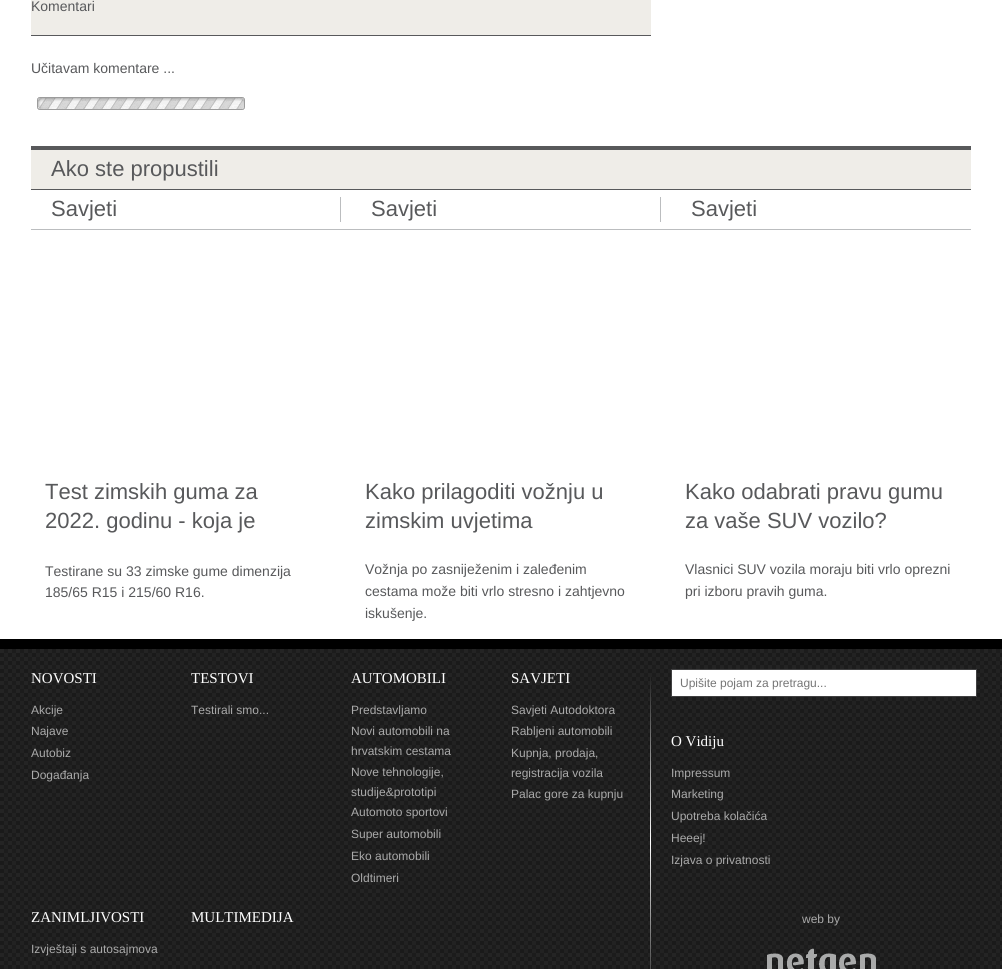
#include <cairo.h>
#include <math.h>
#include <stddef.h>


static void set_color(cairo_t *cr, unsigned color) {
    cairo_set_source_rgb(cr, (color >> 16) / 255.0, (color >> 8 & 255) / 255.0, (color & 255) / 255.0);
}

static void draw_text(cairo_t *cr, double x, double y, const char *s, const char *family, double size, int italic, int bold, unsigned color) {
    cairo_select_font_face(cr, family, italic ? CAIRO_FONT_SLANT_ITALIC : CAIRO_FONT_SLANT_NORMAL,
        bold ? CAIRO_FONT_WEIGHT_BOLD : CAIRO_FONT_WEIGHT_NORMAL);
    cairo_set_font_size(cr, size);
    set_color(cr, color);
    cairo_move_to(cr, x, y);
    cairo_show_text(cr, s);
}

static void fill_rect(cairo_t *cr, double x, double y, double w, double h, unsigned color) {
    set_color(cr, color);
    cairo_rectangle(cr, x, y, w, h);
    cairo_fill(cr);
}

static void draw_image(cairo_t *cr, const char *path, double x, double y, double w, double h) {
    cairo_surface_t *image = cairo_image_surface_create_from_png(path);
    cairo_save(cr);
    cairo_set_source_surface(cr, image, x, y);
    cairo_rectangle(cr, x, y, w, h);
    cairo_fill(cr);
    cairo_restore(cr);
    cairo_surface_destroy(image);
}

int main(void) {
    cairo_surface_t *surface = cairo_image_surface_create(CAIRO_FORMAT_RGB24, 1002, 969);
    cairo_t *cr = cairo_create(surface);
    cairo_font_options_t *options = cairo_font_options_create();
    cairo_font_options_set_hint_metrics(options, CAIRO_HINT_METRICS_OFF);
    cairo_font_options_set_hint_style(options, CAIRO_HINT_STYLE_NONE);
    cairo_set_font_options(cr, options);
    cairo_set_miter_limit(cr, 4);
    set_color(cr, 0xFFFFFF);
    cairo_paint(cr);
    fill_rect(cr, 31, 0, 620, 35, 0xEFEDE8);
    fill_rect(cr, 31, 35, 620, 1, 0x58595B);
    draw_text(cr, 31, 11, "Komentari", "Liberation Sans", 14, 0, 0, 0x58595B);
    draw_text(cr, 31, 73, "Učitavam komentare ...", "Liberation Sans", 14, 0, 0, 0x58595B);
    draw_image(cr, "assets/img1.png", 37, 97, 208, 13);
    fill_rect(cr, 31, 150, 940, 39, 0xEFEDE8);
    fill_rect(cr, 31, 146, 940, 4, 0x58595B);
    fill_rect(cr, 31, 189, 940, 1, 0x58595B);
    draw_text(cr, 51, 176, "Ako ste propustili", "Liberation Sans", 22, 0, 0, 0x58595B);
    fill_rect(cr, 31, 229, 940, 1, 0xBBBDBF);
    draw_text(cr, 51, 216, "Savjeti", "Liberation Sans", 22, 0, 0, 0x58595B);
    fill_rect(cr, 340, 197, 1, 25, 0xBBBDBF);
    draw_text(cr, 371, 216, "Savjeti", "Liberation Sans", 22, 0, 0, 0x58595B);
    fill_rect(cr, 660, 197, 1, 25, 0xBBBDBF);
    draw_text(cr, 691, 216, "Savjeti", "Liberation Sans", 22, 0, 0, 0x58595B);
    draw_text(cr, 45, 499, "Test zimskih guma za", "Liberation Sans", 22, 0, 0, 0x58595B);
    draw_text(cr, 45, 528, "2022. godinu - koja je", "Liberation Sans", 22, 0, 0, 0x58595B);
    draw_text(cr, 45, 576, "Testirane su 33 zimske gume dimenzija", "Liberation Sans", 14, 0, 0, 0x58595B);
    draw_text(cr, 45, 597, "185/65 R15 i 215/60 R16.", "Liberation Sans", 14, 0, 0, 0x58595B);
    draw_text(cr, 365, 499, "Kako prilagoditi vožnju u", "Liberation Sans", 22, 0, 0, 0x58595B);
    draw_text(cr, 365, 528, "zimskim uvjetima", "Liberation Sans", 22, 0, 0, 0x58595B);
    draw_text(cr, 365, 574, "Vožnja po zasniježenim i zaleđenim", "Liberation Sans", 14, 0, 0, 0x58595B);
    draw_text(cr, 365, 596, "cestama može biti vrlo stresno i zahtjevno", "Liberation Sans", 14, 0, 0, 0x58595B);
    draw_text(cr, 365, 618, "iskušenje.", "Liberation Sans", 14, 0, 0, 0x58595B);
    draw_text(cr, 685, 499, "Kako odabrati pravu gumu", "Liberation Sans", 22, 0, 0, 0x58595B);
    draw_text(cr, 685, 528, "za vaše SUV vozilo?", "Liberation Sans", 22, 0, 0, 0x58595B);
    draw_text(cr, 685, 574, "Vlasnici SUV vozila moraju biti vrlo oprezni", "Liberation Sans", 14, 0, 0, 0x58595B);
    draw_text(cr, 685, 596, "pri izboru pravih guma.", "Liberation Sans", 14, 0, 0, 0x58595B);
    draw_image(cr, "assets/img2.png", 0, 649, 1002, 320);
    fill_rect(cr, 0, 639, 1002, 10, 0x000000);
    draw_image(cr, "assets/img3.png", 650, 677, 1, 292);
    draw_text(cr, 31, 683, "NOVOSTI", "Liberation Serif", 15, 0, 0, 0xFFFFFF);
    draw_text(cr, 31, 714, "Akcije", "Liberation Sans", 12, 0, 0, 0xAAAAAA);
    draw_text(cr, 31, 735, "Najave", "Liberation Sans", 12, 0, 0, 0xAAAAAA);
    draw_text(cr, 31, 757, "Autobiz", "Liberation Sans", 12, 0, 0, 0xAAAAAA);
    draw_text(cr, 31, 779, "Događanja", "Liberation Sans", 12, 0, 0, 0xAAAAAA);
    draw_text(cr, 191, 683, "TESTOVI", "Liberation Serif", 15, 0, 0, 0xFFFFFF);
    draw_text(cr, 191, 714, "Testirali smo...", "Liberation Sans", 12, 0, 0, 0xAAAAAA);
    draw_text(cr, 351, 683, "AUTOMOBILI", "Liberation Serif", 15, 0, 0, 0xFFFFFF);
    draw_text(cr, 351, 714, "Predstavljamo", "Liberation Sans", 12, 0, 0, 0xAAAAAA);
    draw_text(cr, 351, 735, "Novi automobili na", "Liberation Sans", 12, 0, 0, 0xAAAAAA);
    draw_text(cr, 351, 755, "hrvatskim cestama", "Liberation Sans", 12, 0, 0, 0xAAAAAA);
    draw_text(cr, 351, 776, "Nove tehnologije,", "Liberation Sans", 12, 0, 0, 0xAAAAAA);
    draw_text(cr, 351, 796, "studije&prototipi", "Liberation Sans", 12, 0, 0, 0xAAAAAA);
    draw_text(cr, 351, 816, "Automoto sportovi", "Liberation Sans", 12, 0, 0, 0xAAAAAA);
    draw_text(cr, 351, 838, "Super automobili", "Liberation Sans", 12, 0, 0, 0xAAAAAA);
    draw_text(cr, 351, 860, "Eko automobili", "Liberation Sans", 12, 0, 0, 0xAAAAAA);
    draw_text(cr, 351, 882, "Oldtimeri", "Liberation Sans", 12, 0, 0, 0xAAAAAA);
    draw_text(cr, 511, 683, "SAVJETI", "Liberation Serif", 15, 0, 0, 0xFFFFFF);
    draw_text(cr, 511, 714, "Savjeti Autodoktora", "Liberation Sans", 12, 0, 0, 0xAAAAAA);
    draw_text(cr, 511, 735, "Rabljeni automobili", "Liberation Sans", 12, 0, 0, 0xAAAAAA);
    draw_text(cr, 511, 757, "Kupnja, prodaja,", "Liberation Sans", 12, 0, 0, 0xAAAAAA);
    draw_text(cr, 511, 777, "registracija vozila", "Liberation Sans", 12, 0, 0, 0xAAAAAA);
    draw_text(cr, 511, 798, "Palac gore za kupnju", "Liberation Sans", 12, 0, 0, 0xAAAAAA);
    draw_text(cr, 31, 922, "ZANIMLJIVOSTI", "Liberation Serif", 15, 0, 0, 0xFFFFFF);
    draw_text(cr, 31, 953, "Izvještaji s autosajmova", "Liberation Sans", 12, 0, 0, 0xAAAAAA);
    draw_text(cr, 191, 922, "MULTIMEDIJA", "Liberation Serif", 15, 0, 0, 0xFFFFFF);
    cairo_rectangle(cr, 671.5, 669.5, 305, 27);
    cairo_fill_preserve(cr);
    set_color(cr, 0x404041);
    cairo_set_line_width(cr, 1);
    cairo_stroke(cr);
    draw_text(cr, 680, 687, "Upišite pojam za pretragu...", "Liberation Sans", 12, 0, 0, 0x757575);
    draw_text(cr, 671, 746, "O Vidiju", "Liberation Serif", 15, 0, 0, 0xFFFFFF);
    draw_text(cr, 671, 777, "Impressum", "Liberation Sans", 12, 0, 0, 0xAAAAAA);
    draw_text(cr, 671, 798, "Marketing", "Liberation Sans", 12, 0, 0, 0xAAAAAA);
    draw_text(cr, 671, 820, "Upotreba kolačića", "Liberation Sans", 12, 0, 0, 0xAAAAAA);
    draw_text(cr, 671, 842, "Heeej!", "Liberation Sans", 12, 0, 0, 0xAAAAAA);
    draw_text(cr, 671, 864, "Izjava o privatnosti", "Liberation Sans", 12, 0, 0, 0xAAAAAA);
    draw_text(cr, 802, 923, "web by", "Liberation Sans", 12, 0, 0, 0xAAAAAA);
    draw_image(cr, "assets/img4.png", 767, 948, 109, 21);
    cairo_surface_write_to_png(surface, "output.png");
    cairo_font_options_destroy(options);
    cairo_destroy(cr);
    cairo_surface_destroy(surface);
    return 0;
}
